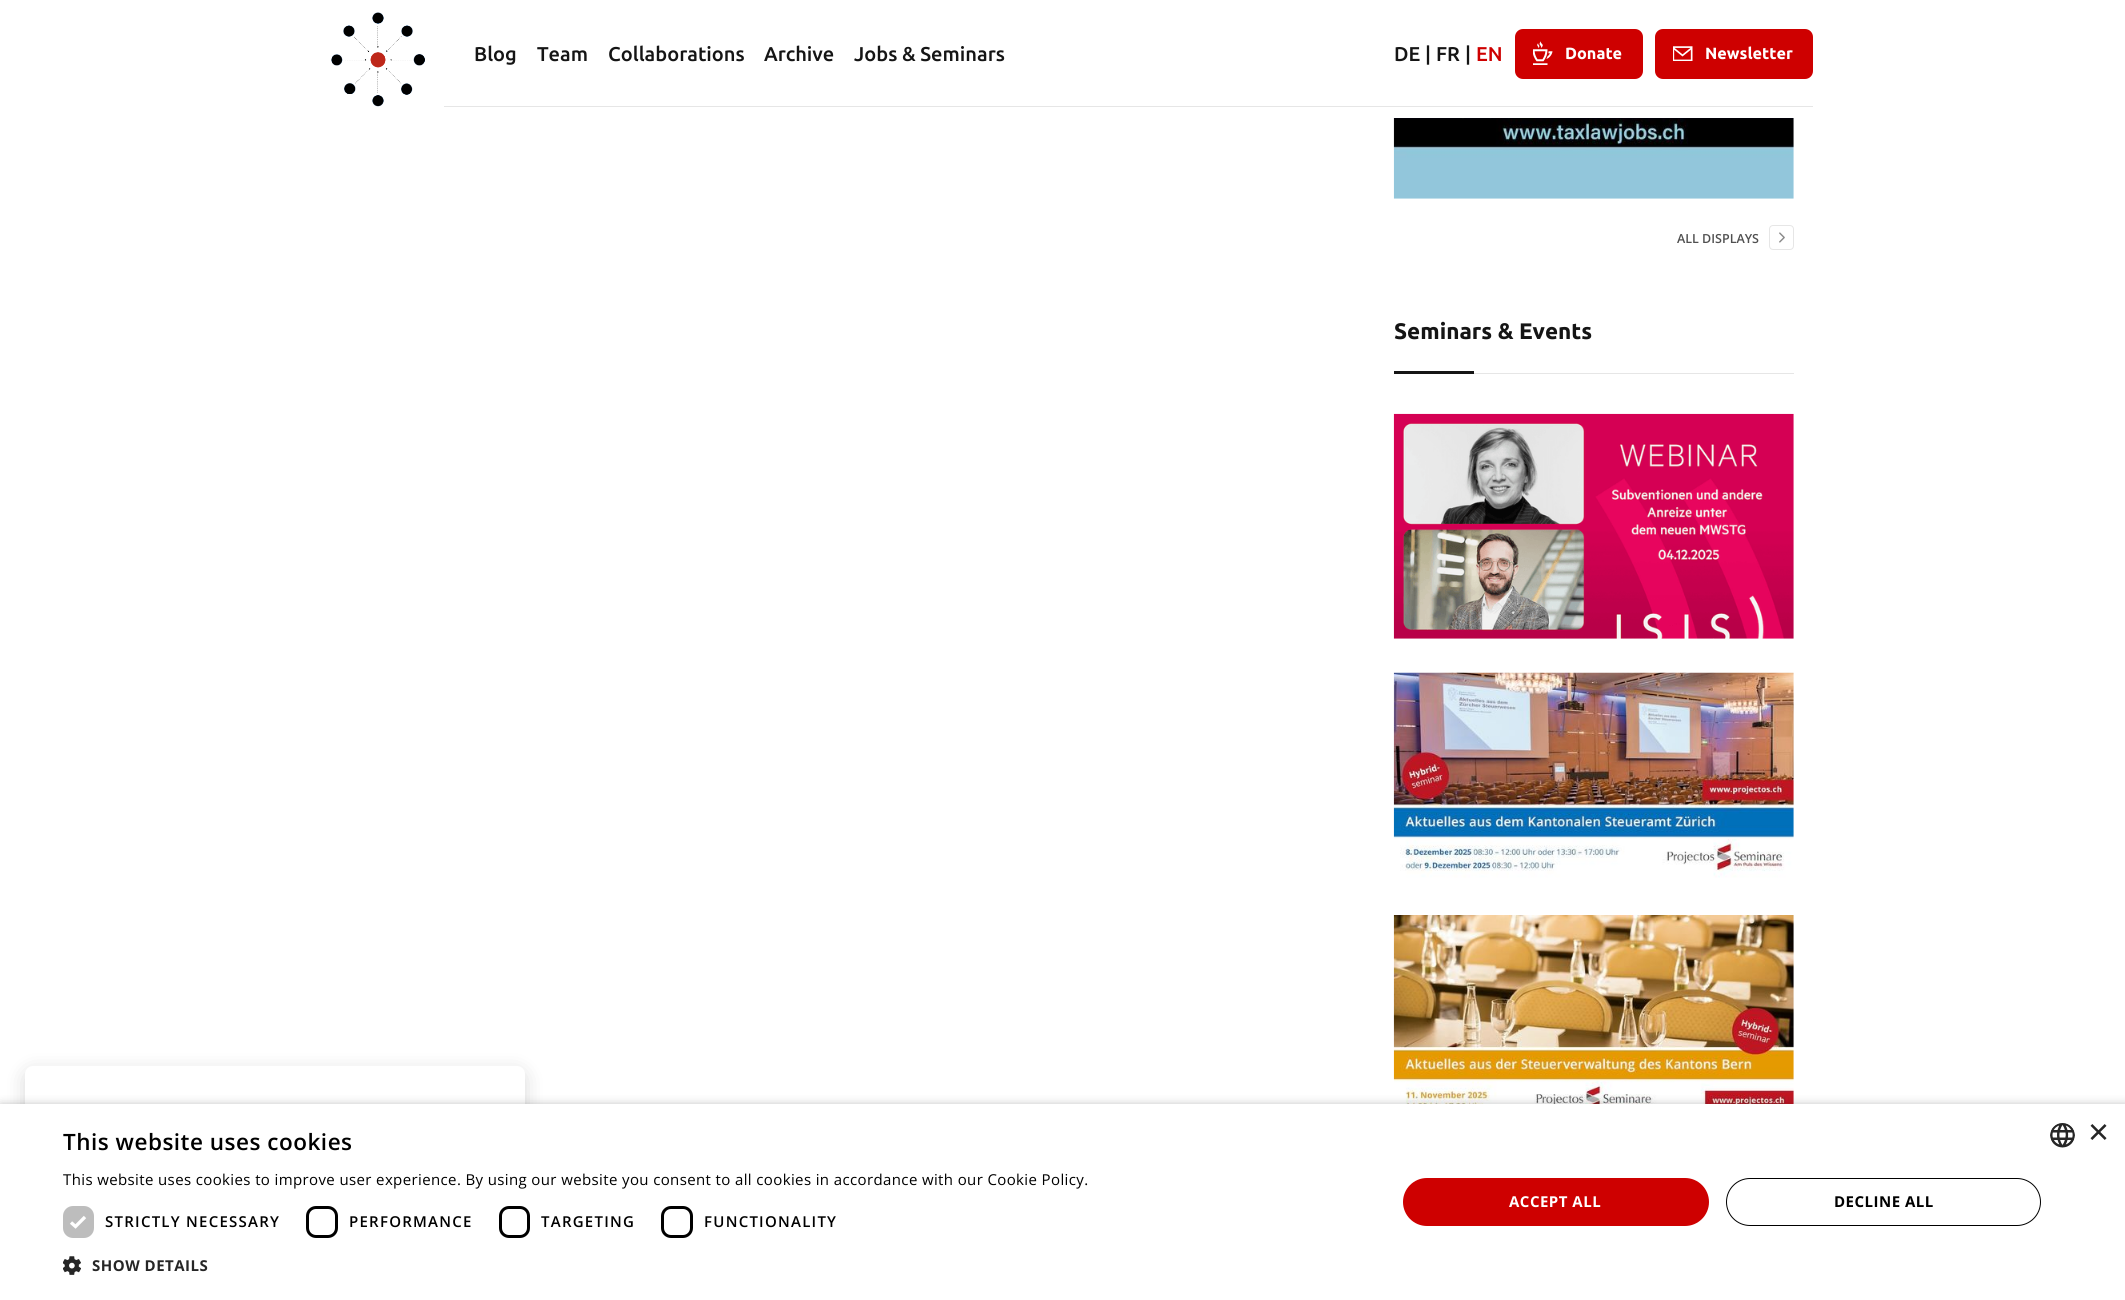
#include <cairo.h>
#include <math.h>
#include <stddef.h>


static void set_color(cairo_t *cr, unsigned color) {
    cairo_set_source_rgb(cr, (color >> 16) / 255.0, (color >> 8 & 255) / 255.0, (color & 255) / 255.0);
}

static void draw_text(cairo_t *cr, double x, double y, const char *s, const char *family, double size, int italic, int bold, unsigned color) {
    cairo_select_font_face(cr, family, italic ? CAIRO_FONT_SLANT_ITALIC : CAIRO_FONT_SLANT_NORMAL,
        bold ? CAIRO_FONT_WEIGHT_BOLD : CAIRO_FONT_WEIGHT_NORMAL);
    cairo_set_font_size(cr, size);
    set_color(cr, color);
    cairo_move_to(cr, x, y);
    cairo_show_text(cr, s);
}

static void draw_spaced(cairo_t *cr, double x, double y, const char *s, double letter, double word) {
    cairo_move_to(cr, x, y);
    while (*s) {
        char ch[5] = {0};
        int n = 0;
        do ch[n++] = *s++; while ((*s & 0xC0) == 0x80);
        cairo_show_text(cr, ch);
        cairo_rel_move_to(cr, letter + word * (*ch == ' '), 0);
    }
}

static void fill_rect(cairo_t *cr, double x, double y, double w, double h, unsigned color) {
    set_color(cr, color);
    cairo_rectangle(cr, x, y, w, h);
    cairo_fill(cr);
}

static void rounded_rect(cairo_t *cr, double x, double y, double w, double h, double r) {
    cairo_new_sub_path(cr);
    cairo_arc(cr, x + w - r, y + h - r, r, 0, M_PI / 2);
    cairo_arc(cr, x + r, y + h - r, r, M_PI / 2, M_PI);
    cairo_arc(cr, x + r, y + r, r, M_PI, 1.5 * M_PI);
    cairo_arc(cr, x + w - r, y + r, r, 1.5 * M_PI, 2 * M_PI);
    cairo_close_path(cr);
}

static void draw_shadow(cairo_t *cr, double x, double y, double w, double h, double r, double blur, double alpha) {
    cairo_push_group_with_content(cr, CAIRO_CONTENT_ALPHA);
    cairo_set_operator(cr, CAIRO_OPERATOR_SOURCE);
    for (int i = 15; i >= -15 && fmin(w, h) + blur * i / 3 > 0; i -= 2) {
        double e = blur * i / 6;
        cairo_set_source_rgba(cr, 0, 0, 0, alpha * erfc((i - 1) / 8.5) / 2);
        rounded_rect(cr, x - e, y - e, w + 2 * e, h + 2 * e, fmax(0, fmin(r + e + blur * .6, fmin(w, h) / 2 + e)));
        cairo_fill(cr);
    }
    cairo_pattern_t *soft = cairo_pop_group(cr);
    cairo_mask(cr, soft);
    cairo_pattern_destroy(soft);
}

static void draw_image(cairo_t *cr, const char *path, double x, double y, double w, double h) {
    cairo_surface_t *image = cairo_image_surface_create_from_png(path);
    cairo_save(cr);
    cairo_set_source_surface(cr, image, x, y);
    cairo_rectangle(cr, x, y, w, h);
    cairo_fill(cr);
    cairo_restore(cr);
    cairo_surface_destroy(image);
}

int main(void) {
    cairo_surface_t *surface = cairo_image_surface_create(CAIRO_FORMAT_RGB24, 2125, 1300);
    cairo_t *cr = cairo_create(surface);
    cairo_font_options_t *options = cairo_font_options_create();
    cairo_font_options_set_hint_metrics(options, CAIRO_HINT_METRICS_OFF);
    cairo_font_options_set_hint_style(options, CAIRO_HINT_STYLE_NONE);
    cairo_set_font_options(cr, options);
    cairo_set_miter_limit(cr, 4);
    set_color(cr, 0xFFFFFF);
    cairo_paint(cr);
    draw_image(cr, "assets/img1.png", 331, 12, 94, 95);
    fill_rect(cr, 444, 106, 1369, 1, 0xE6E6E6);
    draw_text(cr, 474, 61, "Blog", "Ubuntu Medium", 20, 0, 0, 0x151515);
    draw_text(cr, 537, 61, "Team", "Ubuntu Medium", 20, 0, 0, 0x151515);
    draw_text(cr, 608, 61, "Collaborations", "Ubuntu Medium", 20, 0, 0, 0x151515);
    draw_text(cr, 764, 61, "Archive", "Ubuntu Medium", 20, 0, 0, 0x151515);
    draw_text(cr, 854, 61, "Jobs & Seminars", "Ubuntu Medium", 20, 0, 0, 0x151515);
    draw_text(cr, 1394, 61, "DE", "Ubuntu Medium", 20, 0, 0, 0x151515);
    draw_text(cr, 1425, 61, "|", "Ubuntu Medium", 20, 0, 0, 0x151515);
    draw_text(cr, 1436, 61, "FR", "Ubuntu Medium", 20, 0, 0, 0x151515);
    draw_text(cr, 1465, 61, "|", "Ubuntu Medium", 20, 0, 0, 0x151515);
    draw_text(cr, 1476, 61, "EN", "Ubuntu Medium", 20, 0, 0, 0xCE0000);
    rounded_rect(cr, 1515, 29, 128, 50, 8);
    cairo_fill(cr);
    draw_image(cr, "assets/img2.png", 1533, 41, 20, 24);
    draw_text(cr, 1565, 59, "Donate", "Ubuntu", 16.25, 0, 1, 0xFFFFFF);
    set_color(cr, 0xCE0000);
    rounded_rect(cr, 1655, 29, 158, 50, 8);
    cairo_fill(cr);
    draw_image(cr, "assets/img3.png", 1673, 46, 20, 15);
    draw_text(cr, 1705, 59, "Newsletter", "Ubuntu", 16.25, 0, 1, 0xFFFFFF);
    draw_image(cr, "assets/img4.png", 1393, 118, 401, 81);
    draw_text(cr, 1677, 243, "ALL DISPLAYS", "Open Sans SemiBold", 12.5, 0, 0, 0x505050);
    rounded_rect(cr, 1769.5, 225.5, 24, 24, 3.5);
    set_color(cr, 0xE6E6E6);
    cairo_set_line_width(cr, 1);
    cairo_stroke(cr);
    draw_image(cr, "assets/img5.png", 1779, 232, 6, 11);
    fill_rect(cr, 1474, 373, 320, 1, 0xE6E6E6);
    draw_text(cr, 1394, 339, "Seminars & Events", "Ubuntu", 22.5, 0, 1, 0x151515);
    fill_rect(cr, 1394, 371, 80, 3, 0x151515);
    draw_image(cr, "assets/img6.png", 1393, 413, 401, 226);
    draw_image(cr, "assets/img7.png", 1393, 672, 401, 206);
    draw_image(cr, "assets/img8.png", 1393, 915, 401, 189);
    set_color(cr, 0x000000);
    draw_shadow(cr, 25, 1071, 500, 209, 8, 10, 0.15);
    set_color(cr, 0xFFFFFF);
    rounded_rect(cr, 25, 1066, 500, 209, 8);
    cairo_fill(cr);
    set_color(cr, 0x000000);
    draw_shadow(cr, 1, 1106, 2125, 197, 0, 5, 0.35);
    fill_rect(cr, 0, 1104, 2125, 196, 0xFFFFFF);
    cairo_select_font_face(cr, "Open Sans SemiBold", CAIRO_FONT_SLANT_NORMAL, CAIRO_FONT_WEIGHT_NORMAL);
    set_color(cr, 0x000000);
    draw_spaced(cr, 63, 1150, "This website uses cookies", 0.5, 0);
    cairo_select_font_face(cr, "Open Sans", CAIRO_FONT_SLANT_NORMAL, CAIRO_FONT_WEIGHT_NORMAL);
    cairo_set_font_size(cr, 15);
    draw_spaced(cr, 63, 1185, "This website uses cookies to improve user experience. By using our website you consent to all cookies in accordance with our Cookie Policy.", 0.38, 0);
    set_color(cr, 0xBDBDBD);
    rounded_rect(cr, 63, 1206, 31, 32, 10);
    cairo_fill(cr);
    cairo_new_path(cr);
    cairo_move_to(cr, 71, 1222.5);
    cairo_line_to(cr, 75.5, 1226.5);
    cairo_line_to(cr, 85, 1217);
    set_color(cr, 0xFFFFFF);
    cairo_set_line_width(cr, 3.3);
    cairo_stroke(cr);
    cairo_select_font_face(cr, "Open Sans SemiBold", CAIRO_FONT_SLANT_NORMAL, CAIRO_FONT_WEIGHT_NORMAL);
    set_color(cr, 0x000000);
    draw_spaced(cr, 105, 1227, "STRICTLY NECESSARY", 1.25, 0);
    rounded_rect(cr, 307.5, 1207.5, 29, 29, 8.5);
    cairo_set_line_width(cr, 3);
    cairo_stroke(cr);
    draw_spaced(cr, 349, 1227, "PERFORMANCE", 1.25, 0);
    rounded_rect(cr, 500.5, 1207.5, 28, 29, 8.5);
    cairo_stroke(cr);
    draw_spaced(cr, 541, 1227, "TARGETING", 1.25, 0);
    rounded_rect(cr, 662.5, 1207.5, 29, 29, 8.5);
    cairo_stroke(cr);
    draw_spaced(cr, 704, 1227, "FUNCTIONALITY", 1.25, 0);
    draw_image(cr, "assets/img9.png", 63, 1256, 18, 19);
    cairo_select_font_face(cr, "Open Sans", CAIRO_FONT_SLANT_NORMAL, CAIRO_FONT_WEIGHT_BOLD);
    set_color(cr, 0x262626);
    draw_spaced(cr, 92, 1271, "SHOW DETAILS", 0.5, 0);
    set_color(cr, 0xCE0000);
    rounded_rect(cr, 1403, 1178, 306, 48, 24);
    cairo_fill(cr);
    set_color(cr, 0xFFFFFF);
    draw_spaced(cr, 1509, 1207, "ACCEPT ALL", 0.5, 0);
    rounded_rect(cr, 1726.5, 1178.5, 314, 47, 23.5);
    set_color(cr, 0x000000);
    cairo_set_line_width(cr, 1);
    cairo_stroke(cr);
    draw_spaced(cr, 1834, 1207, "DECLINE ALL", 0.5, 0);
    draw_image(cr, "assets/img10.png", 2050, 1123, 25, 25);
    draw_text(cr, 2088, 1144, "×", "Liberation Sans", 36, 0, 0, 0x262626);
    cairo_surface_write_to_png(surface, "output.png");
    cairo_font_options_destroy(options);
    cairo_destroy(cr);
    cairo_surface_destroy(surface);
    return 0;
}
